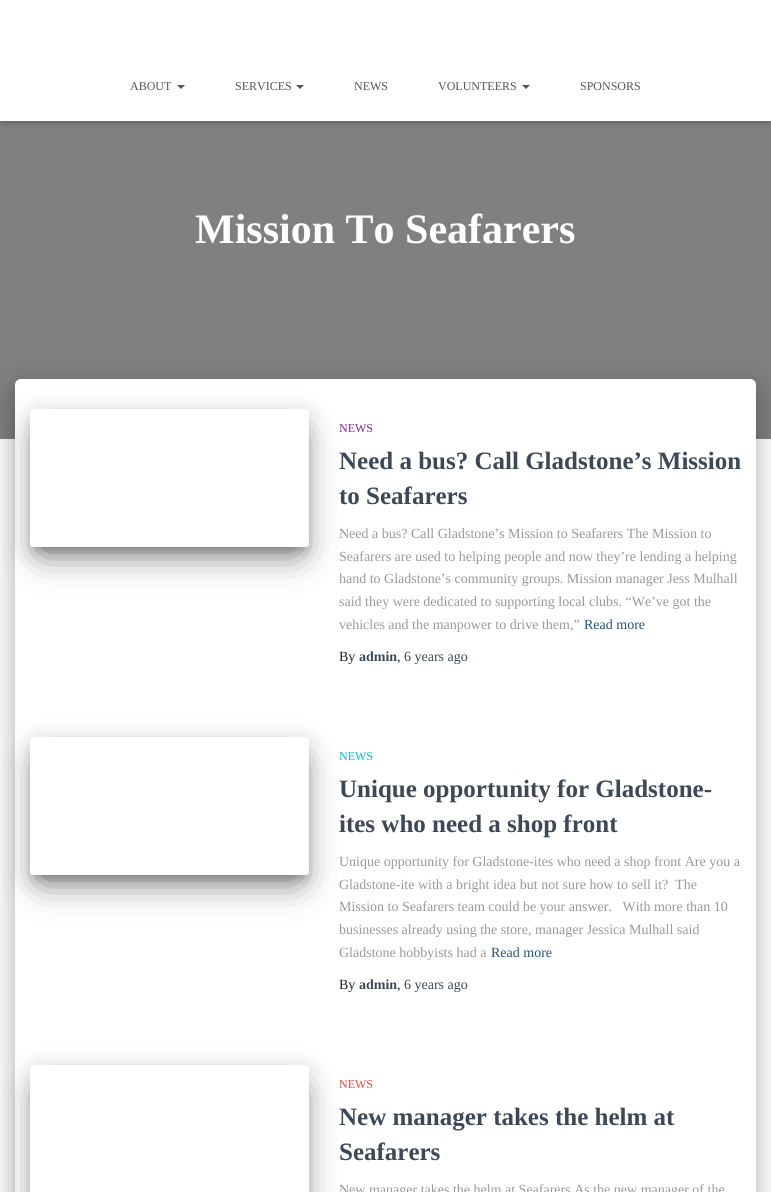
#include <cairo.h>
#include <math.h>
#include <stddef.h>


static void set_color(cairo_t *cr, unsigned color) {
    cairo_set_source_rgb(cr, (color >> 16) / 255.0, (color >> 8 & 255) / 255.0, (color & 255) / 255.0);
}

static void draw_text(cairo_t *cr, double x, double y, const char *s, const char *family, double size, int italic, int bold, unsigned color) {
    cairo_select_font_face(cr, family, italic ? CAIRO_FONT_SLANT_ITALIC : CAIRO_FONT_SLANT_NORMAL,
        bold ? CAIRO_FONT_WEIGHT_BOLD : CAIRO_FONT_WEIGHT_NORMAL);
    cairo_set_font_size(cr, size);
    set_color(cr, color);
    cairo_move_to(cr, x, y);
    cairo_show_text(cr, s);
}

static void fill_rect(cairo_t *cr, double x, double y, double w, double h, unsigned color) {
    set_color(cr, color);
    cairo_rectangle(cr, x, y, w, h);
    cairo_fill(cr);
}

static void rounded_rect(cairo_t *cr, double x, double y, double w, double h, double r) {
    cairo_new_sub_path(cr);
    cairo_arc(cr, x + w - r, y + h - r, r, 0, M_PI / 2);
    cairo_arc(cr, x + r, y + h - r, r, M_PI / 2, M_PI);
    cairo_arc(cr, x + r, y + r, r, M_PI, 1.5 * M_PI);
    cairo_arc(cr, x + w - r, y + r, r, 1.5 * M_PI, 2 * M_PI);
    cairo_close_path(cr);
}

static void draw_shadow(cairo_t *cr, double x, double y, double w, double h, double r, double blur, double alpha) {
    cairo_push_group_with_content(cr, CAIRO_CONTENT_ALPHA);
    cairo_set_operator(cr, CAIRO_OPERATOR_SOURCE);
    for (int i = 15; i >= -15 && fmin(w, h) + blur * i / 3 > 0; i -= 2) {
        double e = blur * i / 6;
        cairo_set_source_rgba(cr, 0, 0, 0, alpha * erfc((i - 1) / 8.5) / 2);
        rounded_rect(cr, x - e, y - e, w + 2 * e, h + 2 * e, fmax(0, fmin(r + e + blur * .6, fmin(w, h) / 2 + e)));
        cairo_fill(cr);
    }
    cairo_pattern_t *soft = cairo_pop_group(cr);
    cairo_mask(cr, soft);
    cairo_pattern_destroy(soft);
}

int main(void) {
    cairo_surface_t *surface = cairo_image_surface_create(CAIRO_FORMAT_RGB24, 771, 1192);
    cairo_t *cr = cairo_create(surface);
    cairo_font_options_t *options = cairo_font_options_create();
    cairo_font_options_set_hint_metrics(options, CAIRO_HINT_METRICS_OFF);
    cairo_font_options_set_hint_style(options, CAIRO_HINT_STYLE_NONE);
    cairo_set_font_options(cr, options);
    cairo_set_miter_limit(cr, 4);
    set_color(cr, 0xFFFFFF);
    cairo_paint(cr);
    fill_rect(cr, 0, 121, 771, 318, 0x808080);
    set_color(cr, 0x000000);
    draw_shadow(cr, 2, 6, 767, 117, 0, 2.5, 0.1);
    draw_shadow(cr, 0, 1, 771, 121, 0, 5, 0.12);
    draw_shadow(cr, 6, 7, 759, 109, 0, 5, 0.42);
    fill_rect(cr, 0, 0, 771, 121, 0xFFFFFF);
    draw_text(cr, 130, 90, "ABOUT", "Liberation Serif", 12, 0, 0, 0x555555);
    cairo_new_path(cr);
    cairo_move_to(cr, 177, 85);
    cairo_line_to(cr, 185, 85);
    cairo_line_to(cr, 181, 89);
    cairo_close_path(cr);
    cairo_fill(cr);
    draw_text(cr, 235, 90, "SERVICES", "Liberation Serif", 12, 0, 0, 0x555555);
    cairo_new_path(cr);
    cairo_move_to(cr, 296, 85);
    cairo_line_to(cr, 304, 85);
    cairo_line_to(cr, 300, 89);
    cairo_close_path(cr);
    cairo_fill(cr);
    draw_text(cr, 354, 90, "NEWS", "Liberation Serif", 12, 0, 0, 0x555555);
    draw_text(cr, 438, 90, "VOLUNTEERS", "Liberation Serif", 12, 0, 0, 0x555555);
    cairo_new_path(cr);
    cairo_move_to(cr, 522, 85);
    cairo_line_to(cr, 530, 85);
    cairo_line_to(cr, 526, 89);
    cairo_close_path(cr);
    cairo_fill(cr);
    draw_text(cr, 580, 90, "SPONSORS", "Liberation Serif", 12, 0, 0, 0x555555);
    draw_text(cr, 195, 243, "Mission To Seafarers", "Liberation Serif", 42, 0, 1, 0xFFFFFF);
    set_color(cr, 0x000000);
    draw_shadow(cr, 20, 392, 731, 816, 1, 5, 0.2);
    draw_shadow(cr, 10, 380, 751, 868, 11, 15, 0.12);
    draw_shadow(cr, 13, 393, 745, 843, 8, 12, 0.14);
    set_color(cr, 0xFFFFFF);
    cairo_new_path(cr);
    cairo_move_to(cr, 21, 379);
    cairo_line_to(cr, 750, 379);
    cairo_curve_to(cr, 753.5, 379, 756, 381.5, 756, 385);
    cairo_line_to(cr, 756, 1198);
    cairo_line_to(cr, 15, 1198);
    cairo_line_to(cr, 15, 385);
    cairo_curve_to(cr, 15, 381.5, 17.5, 379, 21, 379);
    cairo_close_path(cr);
    cairo_fill(cr);
    cairo_save(cr);
    cairo_set_fill_rule(cr, CAIRO_FILL_RULE_EVEN_ODD);
    cairo_new_path(cr);
    cairo_move_to(cr, 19, 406);
    cairo_line_to(cr, 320, 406);
    cairo_line_to(cr, 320, 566);
    cairo_line_to(cr, 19, 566);
    cairo_close_path(cr);
    cairo_move_to(cr, 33, 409);
    cairo_line_to(cr, 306, 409);
    cairo_curve_to(cr, 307.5, 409, 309, 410.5, 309, 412);
    cairo_line_to(cr, 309, 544);
    cairo_curve_to(cr, 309, 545.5, 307.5, 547, 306, 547);
    cairo_line_to(cr, 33, 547);
    cairo_curve_to(cr, 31.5, 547, 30, 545.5, 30, 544);
    cairo_line_to(cr, 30, 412);
    cairo_curve_to(cr, 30, 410.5, 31.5, 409, 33, 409);
    cairo_close_path(cr);
    cairo_clip(cr);
    set_color(cr, 0x000000);
    draw_shadow(cr, 35, 422, 269, 128, 0, 5, 0.2);
    cairo_restore(cr);
    cairo_save(cr);
    cairo_set_fill_rule(cr, CAIRO_FILL_RULE_EVEN_ODD);
    cairo_new_path(cr);
    cairo_move_to(cr, 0, 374);
    cairo_line_to(cr, 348, 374);
    cairo_line_to(cr, 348, 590);
    cairo_line_to(cr, 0, 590);
    cairo_close_path(cr);
    cairo_move_to(cr, 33, 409);
    cairo_line_to(cr, 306, 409);
    cairo_curve_to(cr, 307.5, 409, 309, 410.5, 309, 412);
    cairo_line_to(cr, 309, 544);
    cairo_curve_to(cr, 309, 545.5, 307.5, 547, 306, 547);
    cairo_line_to(cr, 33, 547);
    cairo_curve_to(cr, 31.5, 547, 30, 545.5, 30, 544);
    cairo_line_to(cr, 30, 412);
    cairo_curve_to(cr, 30, 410.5, 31.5, 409, 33, 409);
    cairo_close_path(cr);
    cairo_clip(cr);
    set_color(cr, 0x000000);
    draw_shadow(cr, 30, 413, 279, 138, 3, 12.5, 0.12);
    cairo_restore(cr);
    cairo_save(cr);
    cairo_set_fill_rule(cr, CAIRO_FILL_RULE_EVEN_ODD);
    cairo_new_path(cr);
    cairo_move_to(cr, 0, 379);
    cairo_line_to(cr, 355, 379);
    cairo_line_to(cr, 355, 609);
    cairo_line_to(cr, 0, 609);
    cairo_close_path(cr);
    cairo_move_to(cr, 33, 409);
    cairo_line_to(cr, 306, 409);
    cairo_curve_to(cr, 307.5, 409, 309, 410.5, 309, 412);
    cairo_line_to(cr, 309, 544);
    cairo_curve_to(cr, 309, 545.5, 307.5, 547, 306, 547);
    cairo_line_to(cr, 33, 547);
    cairo_curve_to(cr, 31.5, 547, 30, 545.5, 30, 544);
    cairo_line_to(cr, 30, 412);
    cairo_curve_to(cr, 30, 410.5, 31.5, 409, 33, 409);
    cairo_close_path(cr);
    cairo_clip(cr);
    set_color(cr, 0x000000);
    draw_shadow(cr, 42, 437, 255, 114, 0, 19, 0.56);
    cairo_restore(cr);
    draw_text(cr, 339, 432, "NEWS", "Liberation Serif", 12, 0, 0, 0x89229B);
    draw_text(cr, 339, 469, "Need a bus? Call Gladstone’s Mission", "Liberation Serif", 25, 0, 1, 0x3C4858);
    draw_text(cr, 339, 504, "to Seafarers", "Liberation Serif", 25, 0, 1, 0x3C4858);
    draw_text(cr, 339, 538, "Need a bus? Call Gladstone’s Mission to Seafarers The Mission to", "Liberation Serif", 14, 0, 0, 0x999999);
    draw_text(cr, 339, 561, "Seafarers are used to helping people and now they’re lending a helping", "Liberation Serif", 14, 0, 0, 0x999999);
    draw_text(cr, 339, 583, "hand to Gladstone’s community groups. Mission manager Jess Mulhall", "Liberation Serif", 14, 0, 0, 0x999999);
    draw_text(cr, 339, 606, "said they were dedicated to supporting local clubs. “We’ve got the", "Liberation Serif", 14, 0, 0, 0x999999);
    draw_text(cr, 339, 629, "vehicles and the manpower to drive them,”", "Liberation Serif", 14, 0, 0, 0x999999);
    draw_text(cr, 584, 629, "Read more", "Liberation Serif", 14, 0, 0, 0x23527C);
    draw_text(cr, 339, 661, "By", "Liberation Serif", 14, 0, 0, 0x212121);
    draw_text(cr, 359, 661, "admin", "Liberation Serif", 14, 0, 1, 0x3C4858);
    draw_text(cr, 397, 661, ",", "Liberation Serif", 14, 0, 0, 0x212121);
    draw_text(cr, 404, 661, "6 years ago", "Liberation Serif", 14, 0, 0, 0x3C4858);
    cairo_save(cr);
    cairo_set_fill_rule(cr, CAIRO_FILL_RULE_EVEN_ODD);
    cairo_new_path(cr);
    cairo_move_to(cr, 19, 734);
    cairo_line_to(cr, 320, 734);
    cairo_line_to(cr, 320, 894);
    cairo_line_to(cr, 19, 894);
    cairo_close_path(cr);
    cairo_move_to(cr, 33, 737);
    cairo_line_to(cr, 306, 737);
    cairo_curve_to(cr, 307.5, 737, 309, 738.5, 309, 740);
    cairo_line_to(cr, 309, 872);
    cairo_curve_to(cr, 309, 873.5, 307.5, 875, 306, 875);
    cairo_line_to(cr, 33, 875);
    cairo_curve_to(cr, 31.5, 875, 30, 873.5, 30, 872);
    cairo_line_to(cr, 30, 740);
    cairo_curve_to(cr, 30, 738.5, 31.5, 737, 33, 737);
    cairo_close_path(cr);
    cairo_clip(cr);
    set_color(cr, 0x000000);
    draw_shadow(cr, 35, 750, 269, 128, 0, 5, 0.2);
    cairo_restore(cr);
    cairo_save(cr);
    cairo_set_fill_rule(cr, CAIRO_FILL_RULE_EVEN_ODD);
    cairo_new_path(cr);
    cairo_move_to(cr, 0, 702);
    cairo_line_to(cr, 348, 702);
    cairo_line_to(cr, 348, 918);
    cairo_line_to(cr, 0, 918);
    cairo_close_path(cr);
    cairo_move_to(cr, 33, 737);
    cairo_line_to(cr, 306, 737);
    cairo_curve_to(cr, 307.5, 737, 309, 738.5, 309, 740);
    cairo_line_to(cr, 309, 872);
    cairo_curve_to(cr, 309, 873.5, 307.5, 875, 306, 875);
    cairo_line_to(cr, 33, 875);
    cairo_curve_to(cr, 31.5, 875, 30, 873.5, 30, 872);
    cairo_line_to(cr, 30, 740);
    cairo_curve_to(cr, 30, 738.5, 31.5, 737, 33, 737);
    cairo_close_path(cr);
    cairo_clip(cr);
    set_color(cr, 0x000000);
    draw_shadow(cr, 30, 741, 279, 138, 3, 12.5, 0.12);
    cairo_restore(cr);
    cairo_save(cr);
    cairo_set_fill_rule(cr, CAIRO_FILL_RULE_EVEN_ODD);
    cairo_new_path(cr);
    cairo_move_to(cr, 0, 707);
    cairo_line_to(cr, 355, 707);
    cairo_line_to(cr, 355, 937);
    cairo_line_to(cr, 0, 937);
    cairo_close_path(cr);
    cairo_move_to(cr, 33, 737);
    cairo_line_to(cr, 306, 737);
    cairo_curve_to(cr, 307.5, 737, 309, 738.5, 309, 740);
    cairo_line_to(cr, 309, 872);
    cairo_curve_to(cr, 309, 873.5, 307.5, 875, 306, 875);
    cairo_line_to(cr, 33, 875);
    cairo_curve_to(cr, 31.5, 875, 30, 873.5, 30, 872);
    cairo_line_to(cr, 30, 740);
    cairo_curve_to(cr, 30, 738.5, 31.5, 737, 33, 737);
    cairo_close_path(cr);
    cairo_clip(cr);
    set_color(cr, 0x000000);
    draw_shadow(cr, 42, 765, 255, 114, 0, 19, 0.56);
    cairo_restore(cr);
    draw_text(cr, 339, 760, "NEWS", "Liberation Serif", 12, 0, 0, 0x00BCD4);
    draw_text(cr, 339, 797, "Unique opportunity for Gladstone-", "Liberation Serif", 25, 0, 1, 0x3C4858);
    draw_text(cr, 339, 832, "ites who need a shop front", "Liberation Serif", 25, 0, 1, 0x3C4858);
    draw_text(cr, 339, 866, "Unique opportunity for Gladstone-ites who need a shop front Are you a", "Liberation Serif", 14, 0, 0, 0x999999);
    draw_text(cr, 339, 889, "Gladstone-ite with a bright idea but not sure how to sell it?  The", "Liberation Serif", 14, 0, 0, 0x999999);
    draw_text(cr, 339, 911, "Mission to Seafarers team could be your answer.   With more than 10", "Liberation Serif", 14, 0, 0, 0x999999);
    draw_text(cr, 339, 934, "businesses already using the store, manager Jessica Mulhall said", "Liberation Serif", 14, 0, 0, 0x999999);
    draw_text(cr, 339, 957, "Gladstone hobbyists had a", "Liberation Serif", 14, 0, 0, 0x999999);
    draw_text(cr, 491, 957, "Read more", "Liberation Serif", 14, 0, 0, 0x23527C);
    draw_text(cr, 339, 989, "By", "Liberation Serif", 14, 0, 0, 0x212121);
    draw_text(cr, 359, 989, "admin", "Liberation Serif", 14, 0, 1, 0x3C4858);
    draw_text(cr, 397, 989, ",", "Liberation Serif", 14, 0, 0, 0x212121);
    draw_text(cr, 404, 989, "6 years ago", "Liberation Serif", 14, 0, 0, 0x3C4858);
    cairo_save(cr);
    cairo_set_fill_rule(cr, CAIRO_FILL_RULE_EVEN_ODD);
    cairo_new_path(cr);
    cairo_move_to(cr, 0, 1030);
    cairo_line_to(cr, 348, 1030);
    cairo_line_to(cr, 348, 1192);
    cairo_line_to(cr, 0, 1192);
    cairo_close_path(cr);
    cairo_move_to(cr, 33, 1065);
    cairo_line_to(cr, 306, 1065);
    cairo_curve_to(cr, 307.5, 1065, 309, 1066.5, 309, 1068);
    cairo_line_to(cr, 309, 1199);
    cairo_curve_to(cr, 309, 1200.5, 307.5, 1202, 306, 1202);
    cairo_line_to(cr, 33, 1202);
    cairo_curve_to(cr, 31.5, 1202, 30, 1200.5, 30, 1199);
    cairo_line_to(cr, 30, 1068);
    cairo_curve_to(cr, 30, 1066.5, 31.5, 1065, 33, 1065);
    cairo_close_path(cr);
    cairo_clip(cr);
    set_color(cr, 0x000000);
    draw_shadow(cr, 30, 1069, 279, 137, 3, 12.5, 0.12);
    cairo_restore(cr);
    cairo_save(cr);
    cairo_set_fill_rule(cr, CAIRO_FILL_RULE_EVEN_ODD);
    cairo_new_path(cr);
    cairo_move_to(cr, 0, 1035);
    cairo_line_to(cr, 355, 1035);
    cairo_line_to(cr, 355, 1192);
    cairo_line_to(cr, 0, 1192);
    cairo_close_path(cr);
    cairo_move_to(cr, 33, 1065);
    cairo_line_to(cr, 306, 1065);
    cairo_curve_to(cr, 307.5, 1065, 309, 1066.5, 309, 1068);
    cairo_line_to(cr, 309, 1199);
    cairo_curve_to(cr, 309, 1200.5, 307.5, 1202, 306, 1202);
    cairo_line_to(cr, 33, 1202);
    cairo_curve_to(cr, 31.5, 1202, 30, 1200.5, 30, 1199);
    cairo_line_to(cr, 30, 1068);
    cairo_curve_to(cr, 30, 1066.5, 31.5, 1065, 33, 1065);
    cairo_close_path(cr);
    cairo_clip(cr);
    set_color(cr, 0x000000);
    draw_shadow(cr, 42, 1093, 255, 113, 0, 19, 0.56);
    cairo_restore(cr);
    draw_text(cr, 339, 1088, "NEWS", "Liberation Serif", 12, 0, 0, 0xF44336);
    draw_text(cr, 339, 1125, "New manager takes the helm at", "Liberation Serif", 25, 0, 1, 0x3C4858);
    draw_text(cr, 339, 1160, "Seafarers", "Liberation Serif", 25, 0, 1, 0x3C4858);
    draw_text(cr, 339, 1194, "New manager takes the helm at Seafarers As the new manager of the", "Liberation Serif", 14, 0, 0, 0x999999);
    cairo_surface_write_to_png(surface, "output.png");
    cairo_font_options_destroy(options);
    cairo_destroy(cr);
    cairo_surface_destroy(surface);
    return 0;
}
